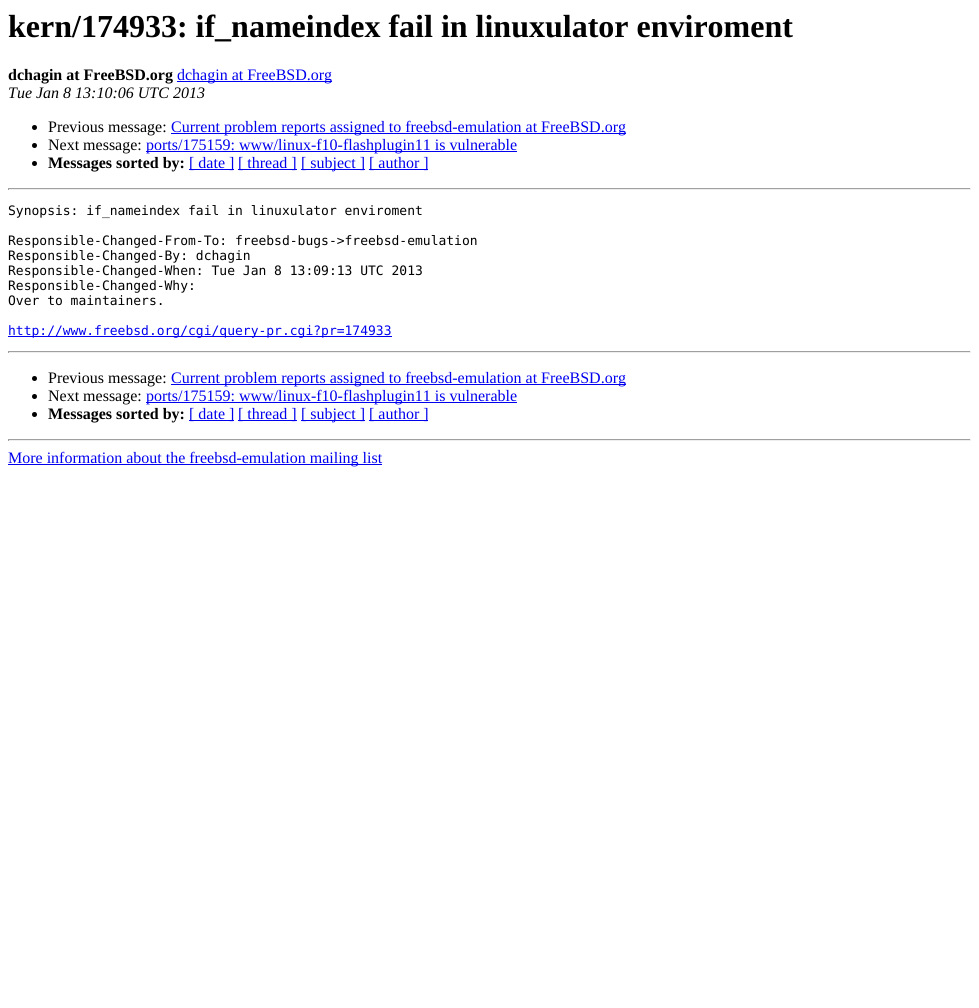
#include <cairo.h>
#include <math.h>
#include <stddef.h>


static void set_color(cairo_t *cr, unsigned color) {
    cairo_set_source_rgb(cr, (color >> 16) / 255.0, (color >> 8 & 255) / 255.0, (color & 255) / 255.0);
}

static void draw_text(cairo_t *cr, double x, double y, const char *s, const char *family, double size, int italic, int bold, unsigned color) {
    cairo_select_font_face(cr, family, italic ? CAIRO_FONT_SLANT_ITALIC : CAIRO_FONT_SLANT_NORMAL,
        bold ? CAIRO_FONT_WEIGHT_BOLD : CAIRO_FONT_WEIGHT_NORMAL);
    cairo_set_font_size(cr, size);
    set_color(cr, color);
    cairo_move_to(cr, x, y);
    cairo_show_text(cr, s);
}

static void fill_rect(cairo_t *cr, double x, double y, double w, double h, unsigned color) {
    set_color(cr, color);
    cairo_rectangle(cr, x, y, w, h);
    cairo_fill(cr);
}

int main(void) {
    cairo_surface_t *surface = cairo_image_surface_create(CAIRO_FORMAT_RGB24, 979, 1008);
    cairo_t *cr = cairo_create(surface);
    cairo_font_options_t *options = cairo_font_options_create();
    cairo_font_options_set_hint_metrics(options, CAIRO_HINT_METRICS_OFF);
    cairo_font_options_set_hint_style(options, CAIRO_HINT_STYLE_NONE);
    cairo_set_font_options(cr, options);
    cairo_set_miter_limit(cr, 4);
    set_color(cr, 0xFFFFFF);
    cairo_paint(cr);
    draw_text(cr, 8, 37, "kern/174933: if_nameindex fail in linuxulator enviroment", "Liberation Serif", 32, 0, 1, 0x000000);
    draw_text(cr, 8, 80, "dchagin at FreeBSD.org", "Liberation Serif", 16, 0, 1, 0x000000);
    fill_rect(cr, 177, 81, 155, 1, 0x0000EE);
    draw_text(cr, 177, 80, "dchagin at FreeBSD.org", "Liberation Serif", 16, 0, 0, 0x0000EE);
    draw_text(cr, 8, 98, "Tue Jan 8 13:10:06 UTC 2013", "Liberation Serif", 16, 1, 0, 0x000000);
    cairo_new_path(cr);
    cairo_arc(cr, 34.5, 127.5, 2.5, 0, 2 * M_PI);
    cairo_fill(cr);
    draw_text(cr, 48, 132, "Previous message:", "Liberation Serif", 16, 0, 0, 0x000000);
    fill_rect(cr, 171, 133, 455, 1, 0x0000EE);
    draw_text(cr, 171, 132, "Current problem reports assigned to freebsd-emulation at FreeBSD.org", "Liberation Serif", 16, 0, 0, 0x0000EE);
    set_color(cr, 0x000000);
    cairo_new_path(cr);
    cairo_arc(cr, 34.5, 145.5, 2.5, 0, 2 * M_PI);
    cairo_fill(cr);
    draw_text(cr, 48, 150, "Next message:", "Liberation Serif", 16, 0, 0, 0x000000);
    fill_rect(cr, 146, 151, 371, 1, 0x0000EE);
    draw_text(cr, 146, 150, "ports/175159: www/linux-f10-flashplugin11 is vulnerable", "Liberation Serif", 16, 0, 0, 0x0000EE);
    set_color(cr, 0x000000);
    cairo_new_path(cr);
    cairo_arc(cr, 34.5, 163.5, 2.5, 0, 2 * M_PI);
    cairo_fill(cr);
    draw_text(cr, 48, 168, "Messages sorted by:", "Liberation Serif", 16, 0, 1, 0x000000);
    fill_rect(cr, 189, 169, 45, 1, 0x0000EE);
    draw_text(cr, 189, 168, "[ date ]", "Liberation Serif", 16, 0, 0, 0x0000EE);
    fill_rect(cr, 238, 169, 59, 1, 0x0000EE);
    draw_text(cr, 238, 168, "[ thread ]", "Liberation Serif", 16, 0, 0, 0x0000EE);
    fill_rect(cr, 301, 169, 64, 1, 0x0000EE);
    draw_text(cr, 301, 168, "[ subject ]", "Liberation Serif", 16, 0, 0, 0x0000EE);
    fill_rect(cr, 369, 169, 59, 1, 0x0000EE);
    draw_text(cr, 369, 168, "[ author ]", "Liberation Serif", 16, 0, 0, 0x0000EE);
    fill_rect(cr, 8, 188, 963, 1, 0x9F9F9F);
    fill_rect(cr, 970, 188, 1, 2, 0xEEEEEE);
    fill_rect(cr, 8, 189, 963, 1, 0xEEEEEE);
    fill_rect(cr, 8, 188, 1, 2, 0x9F9F9F);
    draw_text(cr, 8, 215, "Synopsis: if_nameindex fail in linuxulator enviroment", "DejaVu Sans Mono", 13, 0, 0, 0x000000);
    draw_text(cr, 8, 245, "Responsible-Changed-From-To: freebsd-bugs->freebsd-emulation", "DejaVu Sans Mono", 13, 0, 0, 0x000000);
    draw_text(cr, 8, 260, "Responsible-Changed-By: dchagin", "DejaVu Sans Mono", 13, 0, 0, 0x000000);
    draw_text(cr, 8, 275, "Responsible-Changed-When: Tue Jan 8 13:09:13 UTC 2013", "DejaVu Sans Mono", 13, 0, 0, 0x000000);
    draw_text(cr, 8, 290, "Responsible-Changed-Why:", "DejaVu Sans Mono", 13, 0, 0, 0x000000);
    draw_text(cr, 8, 305, "Over to maintainers.", "DejaVu Sans Mono", 13, 0, 0, 0x000000);
    fill_rect(cr, 8, 336, 384, 1, 0x0000EE);
    draw_text(cr, 8, 335, "http://www.freebsd.org/cgi/query-pr.cgi?pr=174933", "DejaVu Sans Mono", 13, 0, 0, 0x0000EE);
    fill_rect(cr, 8, 351, 963, 1, 0x9F9F9F);
    fill_rect(cr, 970, 351, 1, 2, 0xEEEEEE);
    fill_rect(cr, 8, 352, 963, 1, 0xEEEEEE);
    fill_rect(cr, 8, 351, 1, 2, 0x9F9F9F);
    set_color(cr, 0x000000);
    cairo_new_path(cr);
    cairo_arc(cr, 34.5, 378.5, 2.5, 0, 2 * M_PI);
    cairo_fill(cr);
    draw_text(cr, 48, 383, "Previous message:", "Liberation Serif", 16, 0, 0, 0x000000);
    fill_rect(cr, 171, 384, 455, 1, 0x0000EE);
    draw_text(cr, 171, 383, "Current problem reports assigned to freebsd-emulation at FreeBSD.org", "Liberation Serif", 16, 0, 0, 0x0000EE);
    set_color(cr, 0x000000);
    cairo_new_path(cr);
    cairo_arc(cr, 34.5, 396.5, 2.5, 0, 2 * M_PI);
    cairo_fill(cr);
    draw_text(cr, 48, 401, "Next message:", "Liberation Serif", 16, 0, 0, 0x000000);
    fill_rect(cr, 146, 402, 371, 1, 0x0000EE);
    draw_text(cr, 146, 401, "ports/175159: www/linux-f10-flashplugin11 is vulnerable", "Liberation Serif", 16, 0, 0, 0x0000EE);
    set_color(cr, 0x000000);
    cairo_new_path(cr);
    cairo_arc(cr, 34.5, 414.5, 2.5, 0, 2 * M_PI);
    cairo_fill(cr);
    draw_text(cr, 48, 419, "Messages sorted by:", "Liberation Serif", 16, 0, 1, 0x000000);
    fill_rect(cr, 189, 420, 45, 1, 0x0000EE);
    draw_text(cr, 189, 419, "[ date ]", "Liberation Serif", 16, 0, 0, 0x0000EE);
    fill_rect(cr, 238, 420, 59, 1, 0x0000EE);
    draw_text(cr, 238, 419, "[ thread ]", "Liberation Serif", 16, 0, 0, 0x0000EE);
    fill_rect(cr, 301, 420, 64, 1, 0x0000EE);
    draw_text(cr, 301, 419, "[ subject ]", "Liberation Serif", 16, 0, 0, 0x0000EE);
    fill_rect(cr, 369, 420, 59, 1, 0x0000EE);
    draw_text(cr, 369, 419, "[ author ]", "Liberation Serif", 16, 0, 0, 0x0000EE);
    fill_rect(cr, 8, 439, 963, 1, 0x9F9F9F);
    fill_rect(cr, 970, 439, 1, 2, 0xEEEEEE);
    fill_rect(cr, 8, 440, 963, 1, 0xEEEEEE);
    fill_rect(cr, 8, 439, 1, 2, 0x9F9F9F);
    fill_rect(cr, 8, 464, 374, 1, 0x0000EE);
    draw_text(cr, 8, 463, "More information about the freebsd-emulation mailing list", "Liberation Serif", 16, 0, 0, 0x0000EE);
    cairo_surface_write_to_png(surface, "output.png");
    cairo_font_options_destroy(options);
    cairo_destroy(cr);
    cairo_surface_destroy(surface);
    return 0;
}
